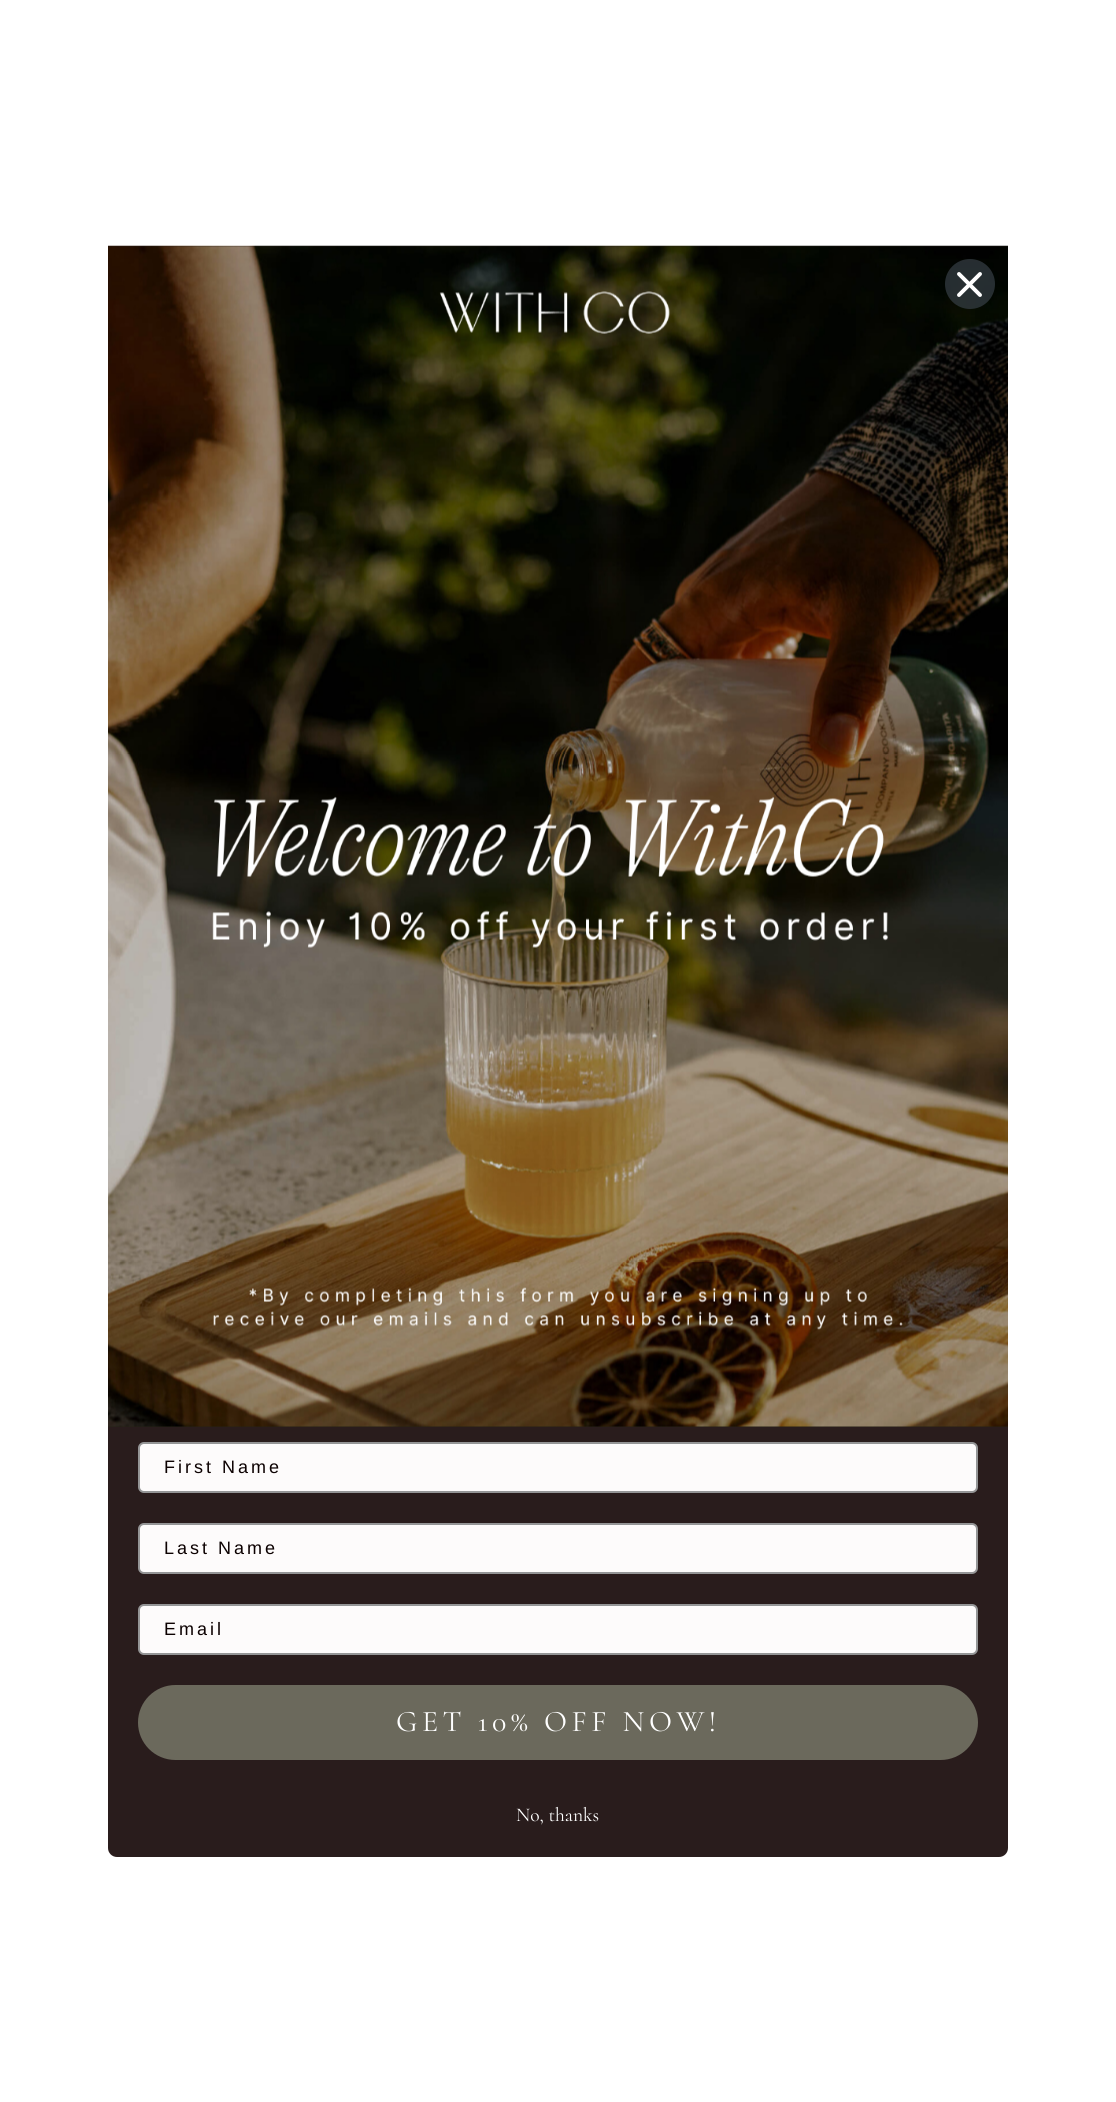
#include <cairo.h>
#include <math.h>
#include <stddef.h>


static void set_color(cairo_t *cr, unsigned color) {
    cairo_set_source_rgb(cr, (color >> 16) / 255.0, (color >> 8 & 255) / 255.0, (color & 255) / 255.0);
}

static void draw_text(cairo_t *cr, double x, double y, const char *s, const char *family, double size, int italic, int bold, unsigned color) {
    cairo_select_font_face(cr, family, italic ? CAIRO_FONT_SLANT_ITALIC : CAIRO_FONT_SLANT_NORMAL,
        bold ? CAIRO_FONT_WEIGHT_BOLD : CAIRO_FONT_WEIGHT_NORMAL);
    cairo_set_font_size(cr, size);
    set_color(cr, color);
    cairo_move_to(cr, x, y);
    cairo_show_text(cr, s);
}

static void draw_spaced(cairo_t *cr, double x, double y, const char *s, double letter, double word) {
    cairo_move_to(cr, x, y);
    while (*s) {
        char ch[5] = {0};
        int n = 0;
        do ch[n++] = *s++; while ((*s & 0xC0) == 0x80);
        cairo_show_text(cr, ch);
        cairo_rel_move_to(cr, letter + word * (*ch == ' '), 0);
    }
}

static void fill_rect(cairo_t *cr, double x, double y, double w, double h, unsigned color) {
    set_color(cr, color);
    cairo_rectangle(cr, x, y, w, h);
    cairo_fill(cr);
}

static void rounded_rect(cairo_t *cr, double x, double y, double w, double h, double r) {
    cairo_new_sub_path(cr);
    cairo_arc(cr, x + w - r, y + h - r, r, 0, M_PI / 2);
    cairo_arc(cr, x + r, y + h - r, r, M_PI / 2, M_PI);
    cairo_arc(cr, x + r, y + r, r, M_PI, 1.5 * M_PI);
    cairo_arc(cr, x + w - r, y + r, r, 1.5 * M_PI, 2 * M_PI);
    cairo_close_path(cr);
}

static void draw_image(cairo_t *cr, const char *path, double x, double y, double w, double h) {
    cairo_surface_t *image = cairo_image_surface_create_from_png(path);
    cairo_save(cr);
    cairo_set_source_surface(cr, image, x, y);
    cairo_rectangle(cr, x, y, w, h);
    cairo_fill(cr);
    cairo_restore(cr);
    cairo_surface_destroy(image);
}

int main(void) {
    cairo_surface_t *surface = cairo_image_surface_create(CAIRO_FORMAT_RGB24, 1116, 2102);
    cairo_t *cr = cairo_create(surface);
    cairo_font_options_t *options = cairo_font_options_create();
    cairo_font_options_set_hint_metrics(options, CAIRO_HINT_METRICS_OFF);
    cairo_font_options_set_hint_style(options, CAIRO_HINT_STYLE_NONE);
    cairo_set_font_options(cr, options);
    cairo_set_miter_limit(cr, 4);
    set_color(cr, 0xFFFFFF);
    cairo_paint(cr);
    set_color(cr, 0x291C1C);
    rounded_rect(cr, 108, 246, 900, 1611, 9);
    cairo_fill(cr);
    fill_rect(cr, 108, 246, 900, 1181, 0x262116);
    draw_image(cr, "assets/img1.png", 108, 245, 900, 1182);
    cairo_set_source_rgba(cr, 0.216, 0.247, 0.278, 0.7);
    cairo_arc(cr, 970, 284, 25, 0, 2 * M_PI);
    cairo_fill(cr);
    cairo_new_path(cr);
    cairo_move_to(cr, 959, 274);
    cairo_line_to(cr, 980, 295);
    cairo_move_to(cr, 959, 295);
    cairo_line_to(cr, 980, 274);
    cairo_close_path(cr);
    set_color(cr, 0xFFFFFF);
    cairo_set_line_width(cr, 3.9);
    cairo_set_line_cap(cr, CAIRO_LINE_CAP_ROUND);
    cairo_set_line_join(cr, CAIRO_LINE_JOIN_ROUND);
    cairo_stroke(cr);
    set_color(cr, 0xFDFBFB);
    rounded_rect(cr, 139, 1443, 838, 49, 5);
    cairo_fill_preserve(cr);
    set_color(cr, 0x949596);
    cairo_set_line_width(cr, 2);
    cairo_set_line_cap(cr, CAIRO_LINE_CAP_BUTT);
    cairo_set_line_join(cr, CAIRO_LINE_JOIN_MITER);
    cairo_stroke(cr);
    cairo_select_font_face(cr, "Liberation Sans", CAIRO_FONT_SLANT_NORMAL, CAIRO_FONT_WEIGHT_NORMAL);
    cairo_set_font_size(cr, 18);
    set_color(cr, 0x0C0101);
    draw_spaced(cr, 164, 1473, "First Name", 3, 0);
    set_color(cr, 0xFDFBFB);
    rounded_rect(cr, 139, 1524, 838, 49, 5);
    cairo_fill_preserve(cr);
    set_color(cr, 0x949596);
    cairo_stroke(cr);
    set_color(cr, 0x0C0101);
    draw_spaced(cr, 164, 1554, "Last Name", 3, 0);
    set_color(cr, 0xFDFBFB);
    rounded_rect(cr, 139, 1605, 838, 49, 5);
    cairo_fill_preserve(cr);
    set_color(cr, 0x949596);
    cairo_stroke(cr);
    set_color(cr, 0x0C0101);
    draw_spaced(cr, 164, 1635, "Email", 3, 0);
    set_color(cr, 0x6B695C);
    rounded_rect(cr, 138, 1685, 840, 75, 37.5);
    cairo_fill(cr);
    cairo_select_font_face(cr, "Cormorant Light", CAIRO_FONT_SLANT_NORMAL, CAIRO_FONT_WEIGHT_NORMAL);
    cairo_set_font_size(cr, 30);
    set_color(cr, 0xFFFFFF);
    draw_spaced(cr, 396, 1731, "GET 10% OFF NOW!", 4.5, 0);
    draw_text(cr, 516, 1821, "No, thanks", "Cormorant Light", 19.5, 0, 0, 0xFFFFFF);
    cairo_surface_write_to_png(surface, "output.png");
    cairo_font_options_destroy(options);
    cairo_destroy(cr);
    cairo_surface_destroy(surface);
    return 0;
}
